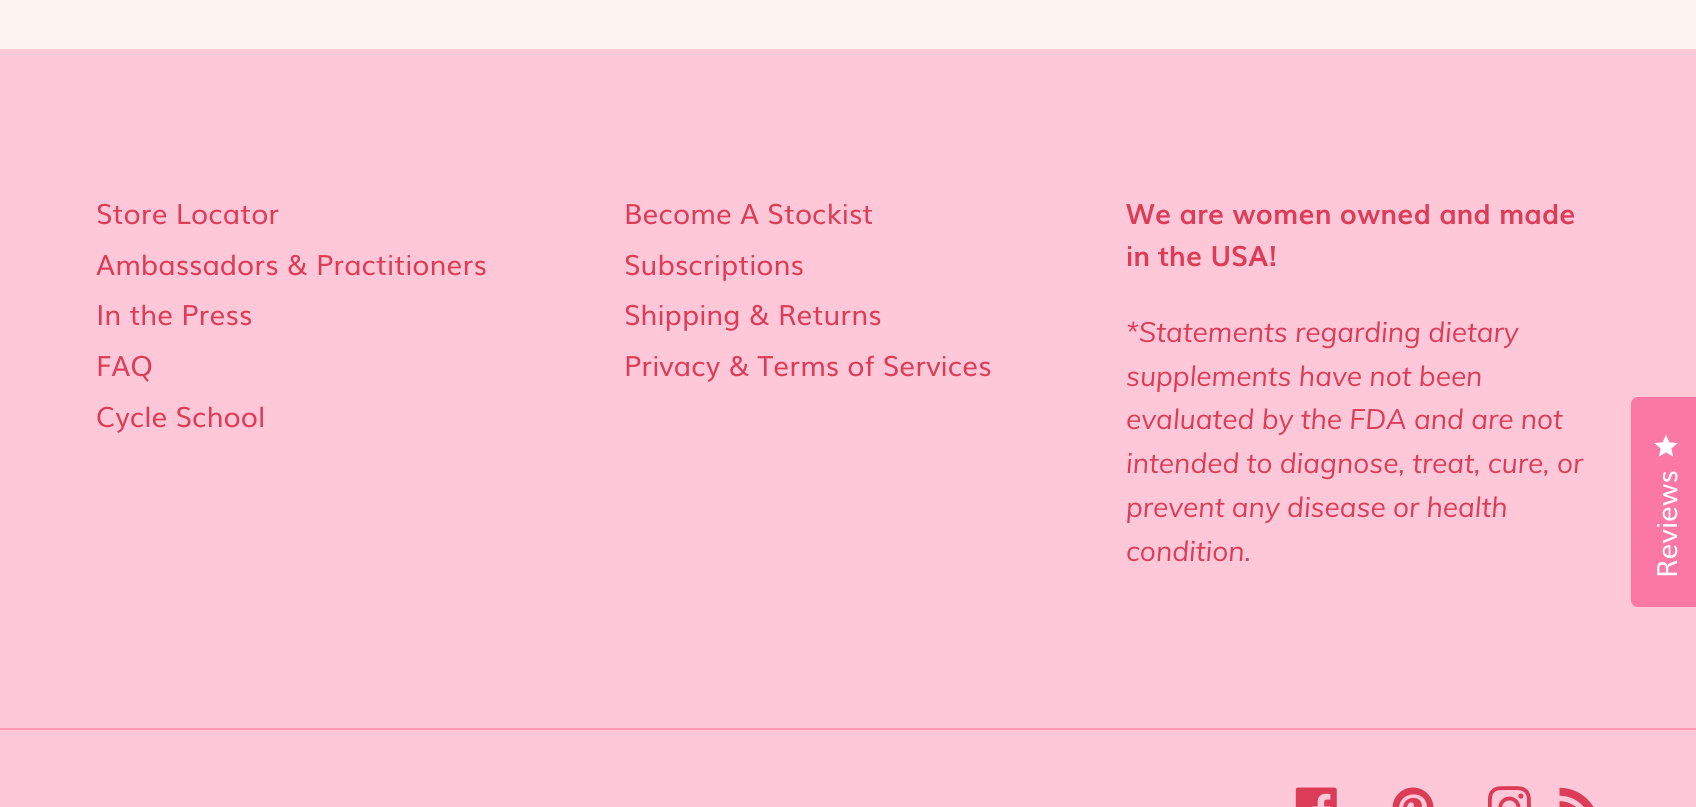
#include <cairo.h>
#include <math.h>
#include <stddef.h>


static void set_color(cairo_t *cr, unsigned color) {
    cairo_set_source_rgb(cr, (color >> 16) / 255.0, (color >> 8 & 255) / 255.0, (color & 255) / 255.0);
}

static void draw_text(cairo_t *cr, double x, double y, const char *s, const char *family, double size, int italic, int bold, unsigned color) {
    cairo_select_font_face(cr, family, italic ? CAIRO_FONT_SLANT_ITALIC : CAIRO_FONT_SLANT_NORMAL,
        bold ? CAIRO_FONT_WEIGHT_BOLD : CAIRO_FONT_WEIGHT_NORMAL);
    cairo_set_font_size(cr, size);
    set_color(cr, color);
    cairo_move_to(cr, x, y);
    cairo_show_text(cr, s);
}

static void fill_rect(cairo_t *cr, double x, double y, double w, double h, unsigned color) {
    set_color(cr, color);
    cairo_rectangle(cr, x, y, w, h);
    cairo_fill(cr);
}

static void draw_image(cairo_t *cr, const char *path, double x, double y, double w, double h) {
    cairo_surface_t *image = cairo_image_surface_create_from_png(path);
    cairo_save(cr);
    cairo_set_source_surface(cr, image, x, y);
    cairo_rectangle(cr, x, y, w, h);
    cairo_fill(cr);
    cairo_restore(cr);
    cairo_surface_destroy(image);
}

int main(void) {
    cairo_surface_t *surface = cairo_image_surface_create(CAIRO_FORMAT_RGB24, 1696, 807);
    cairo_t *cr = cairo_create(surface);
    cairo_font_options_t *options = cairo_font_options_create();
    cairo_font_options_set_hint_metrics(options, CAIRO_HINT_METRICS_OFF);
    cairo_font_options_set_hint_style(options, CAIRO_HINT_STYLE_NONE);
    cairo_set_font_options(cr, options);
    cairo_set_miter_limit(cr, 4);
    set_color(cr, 0xFDF3F0);
    cairo_paint(cr);
    fill_rect(cr, 0, 49, 1696, 758, 0xFFC8D8);
    draw_text(cr, 96, 224, "Store Locator", "Muli", 28, 0, 0, 0xDC3C57);
    draw_text(cr, 96, 275, "Ambassadors & Practitioners", "Muli", 28, 0, 0, 0xDC3C57);
    draw_text(cr, 96, 325, "In the Press", "Muli", 28, 0, 0, 0xDC3C57);
    draw_text(cr, 96, 376, "FAQ", "Muli", 28, 0, 0, 0xDC3C57);
    draw_text(cr, 96, 427, "Cycle School", "Muli", 28, 0, 0, 0xDC3C57);
    draw_text(cr, 624, 224, "Become A Stockist", "Muli", 28, 0, 0, 0xDC3C57);
    draw_text(cr, 624, 275, "Subscriptions", "Muli", 28, 0, 0, 0xDC3C57);
    draw_text(cr, 624, 325, "Shipping & Returns", "Muli", 28, 0, 0, 0xDC3C57);
    draw_text(cr, 624, 376, "Privacy & Terms of Services", "Muli", 28, 0, 0, 0xDC3C57);
    draw_text(cr, 1126, 224, "We are women owned and made", "Muli", 28, 0, 1, 0xDC3C57);
    draw_text(cr, 1126, 266, "in the USA!", "Muli", 28, 0, 1, 0xDC3C57);
    draw_text(cr, 1126, 342, "*Statements regarding dietary", "Muli", 28, 1, 0, 0xDC3C57);
    draw_text(cr, 1126, 386, "supplements have not been", "Muli", 28, 1, 0, 0xDC3C57);
    draw_text(cr, 1126, 429, "evaluated by the FDA and are not", "Muli", 28, 1, 0, 0xDC3C57);
    draw_text(cr, 1126, 473, "intended to diagnose, treat, cure, or", "Muli", 28, 1, 0, 0xDC3C57);
    draw_text(cr, 1126, 517, "prevent any disease or health", "Muli", 28, 1, 0, 0xDC3C57);
    draw_text(cr, 1126, 561, "condition.", "Muli", 28, 1, 0, 0xDC3C57);
    fill_rect(cr, 0, 728, 1696, 2, 0xFF95B4);
    draw_image(cr, "assets/img1.png", 1295, 787, 42, 20);
    draw_image(cr, "assets/img2.png", 1392, 787, 42, 20);
    draw_image(cr, "assets/img3.png", 1488, 786, 43, 21);
    draw_image(cr, "assets/img4.png", 1559, 787, 35, 20);
    set_color(cr, 0xFC78A4);
    cairo_new_path(cr);
    cairo_move_to(cr, 1638, 397);
    cairo_line_to(cr, 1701, 397);
    cairo_line_to(cr, 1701, 607);
    cairo_line_to(cr, 1638, 607);
    cairo_curve_to(cr, 1634, 607, 1631, 604, 1631, 600);
    cairo_line_to(cr, 1631, 404);
    cairo_curve_to(cr, 1631, 400, 1634, 397, 1638, 397);
    cairo_close_path(cr);
    cairo_fill(cr);
    draw_image(cr, "assets/img5.png", 1654, 434, 24, 23);
    cairo_save(cr);
    cairo_translate(cr, 1677, 578);
    cairo_rotate(cr, -89.9 * M_PI / 180);
    draw_text(cr, 0, 0, "Reviews", "Muli", 28, 0, 0, 0xFFFFFF);
    cairo_restore(cr);
    cairo_surface_write_to_png(surface, "output.png");
    cairo_font_options_destroy(options);
    cairo_destroy(cr);
    cairo_surface_destroy(surface);
    return 0;
}
